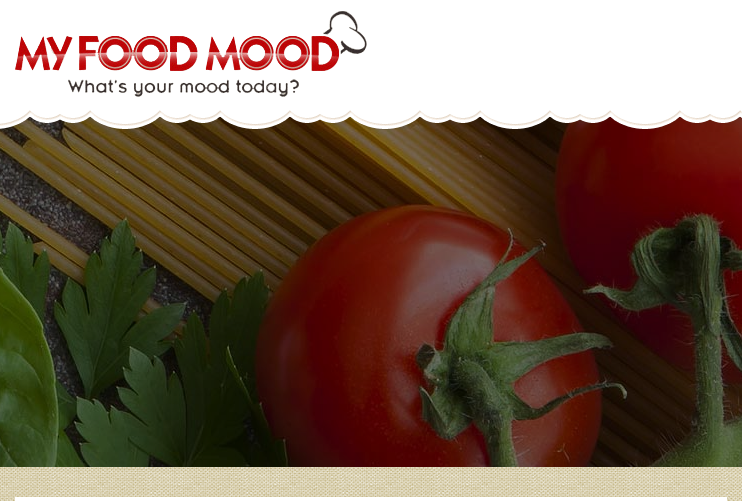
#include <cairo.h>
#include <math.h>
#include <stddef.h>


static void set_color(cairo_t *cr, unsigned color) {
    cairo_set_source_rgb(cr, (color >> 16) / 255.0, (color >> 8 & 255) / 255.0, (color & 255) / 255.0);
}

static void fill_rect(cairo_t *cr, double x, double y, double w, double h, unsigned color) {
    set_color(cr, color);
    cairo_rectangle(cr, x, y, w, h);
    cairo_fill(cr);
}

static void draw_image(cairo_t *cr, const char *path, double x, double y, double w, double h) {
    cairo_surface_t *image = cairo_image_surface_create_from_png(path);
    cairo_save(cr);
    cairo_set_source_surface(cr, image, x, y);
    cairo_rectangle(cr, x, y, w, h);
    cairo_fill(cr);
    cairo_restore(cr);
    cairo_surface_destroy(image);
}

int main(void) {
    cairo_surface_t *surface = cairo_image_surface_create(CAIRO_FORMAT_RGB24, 742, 501);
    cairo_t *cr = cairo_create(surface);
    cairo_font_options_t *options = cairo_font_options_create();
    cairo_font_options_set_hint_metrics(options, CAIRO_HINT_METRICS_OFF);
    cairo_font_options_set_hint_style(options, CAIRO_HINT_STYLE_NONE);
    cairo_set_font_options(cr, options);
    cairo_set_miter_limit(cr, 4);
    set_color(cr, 0xFFFFFF);
    cairo_paint(cr);
    draw_image(cr, "assets/img1.png", 15, 11, 352, 86);
    draw_image(cr, "assets/img3.png", 0, 117, 742, 350);
    draw_image(cr, "assets/img2.png", 0, 110, 742, 20);
    draw_image(cr, "assets/img4.png", 0, 467, 742, 34);
    fill_rect(cr, 15, 497, 712, 4, 0xFFFFFF);
    cairo_surface_write_to_png(surface, "output.png");
    cairo_font_options_destroy(options);
    cairo_destroy(cr);
    cairo_surface_destroy(surface);
    return 0;
}
